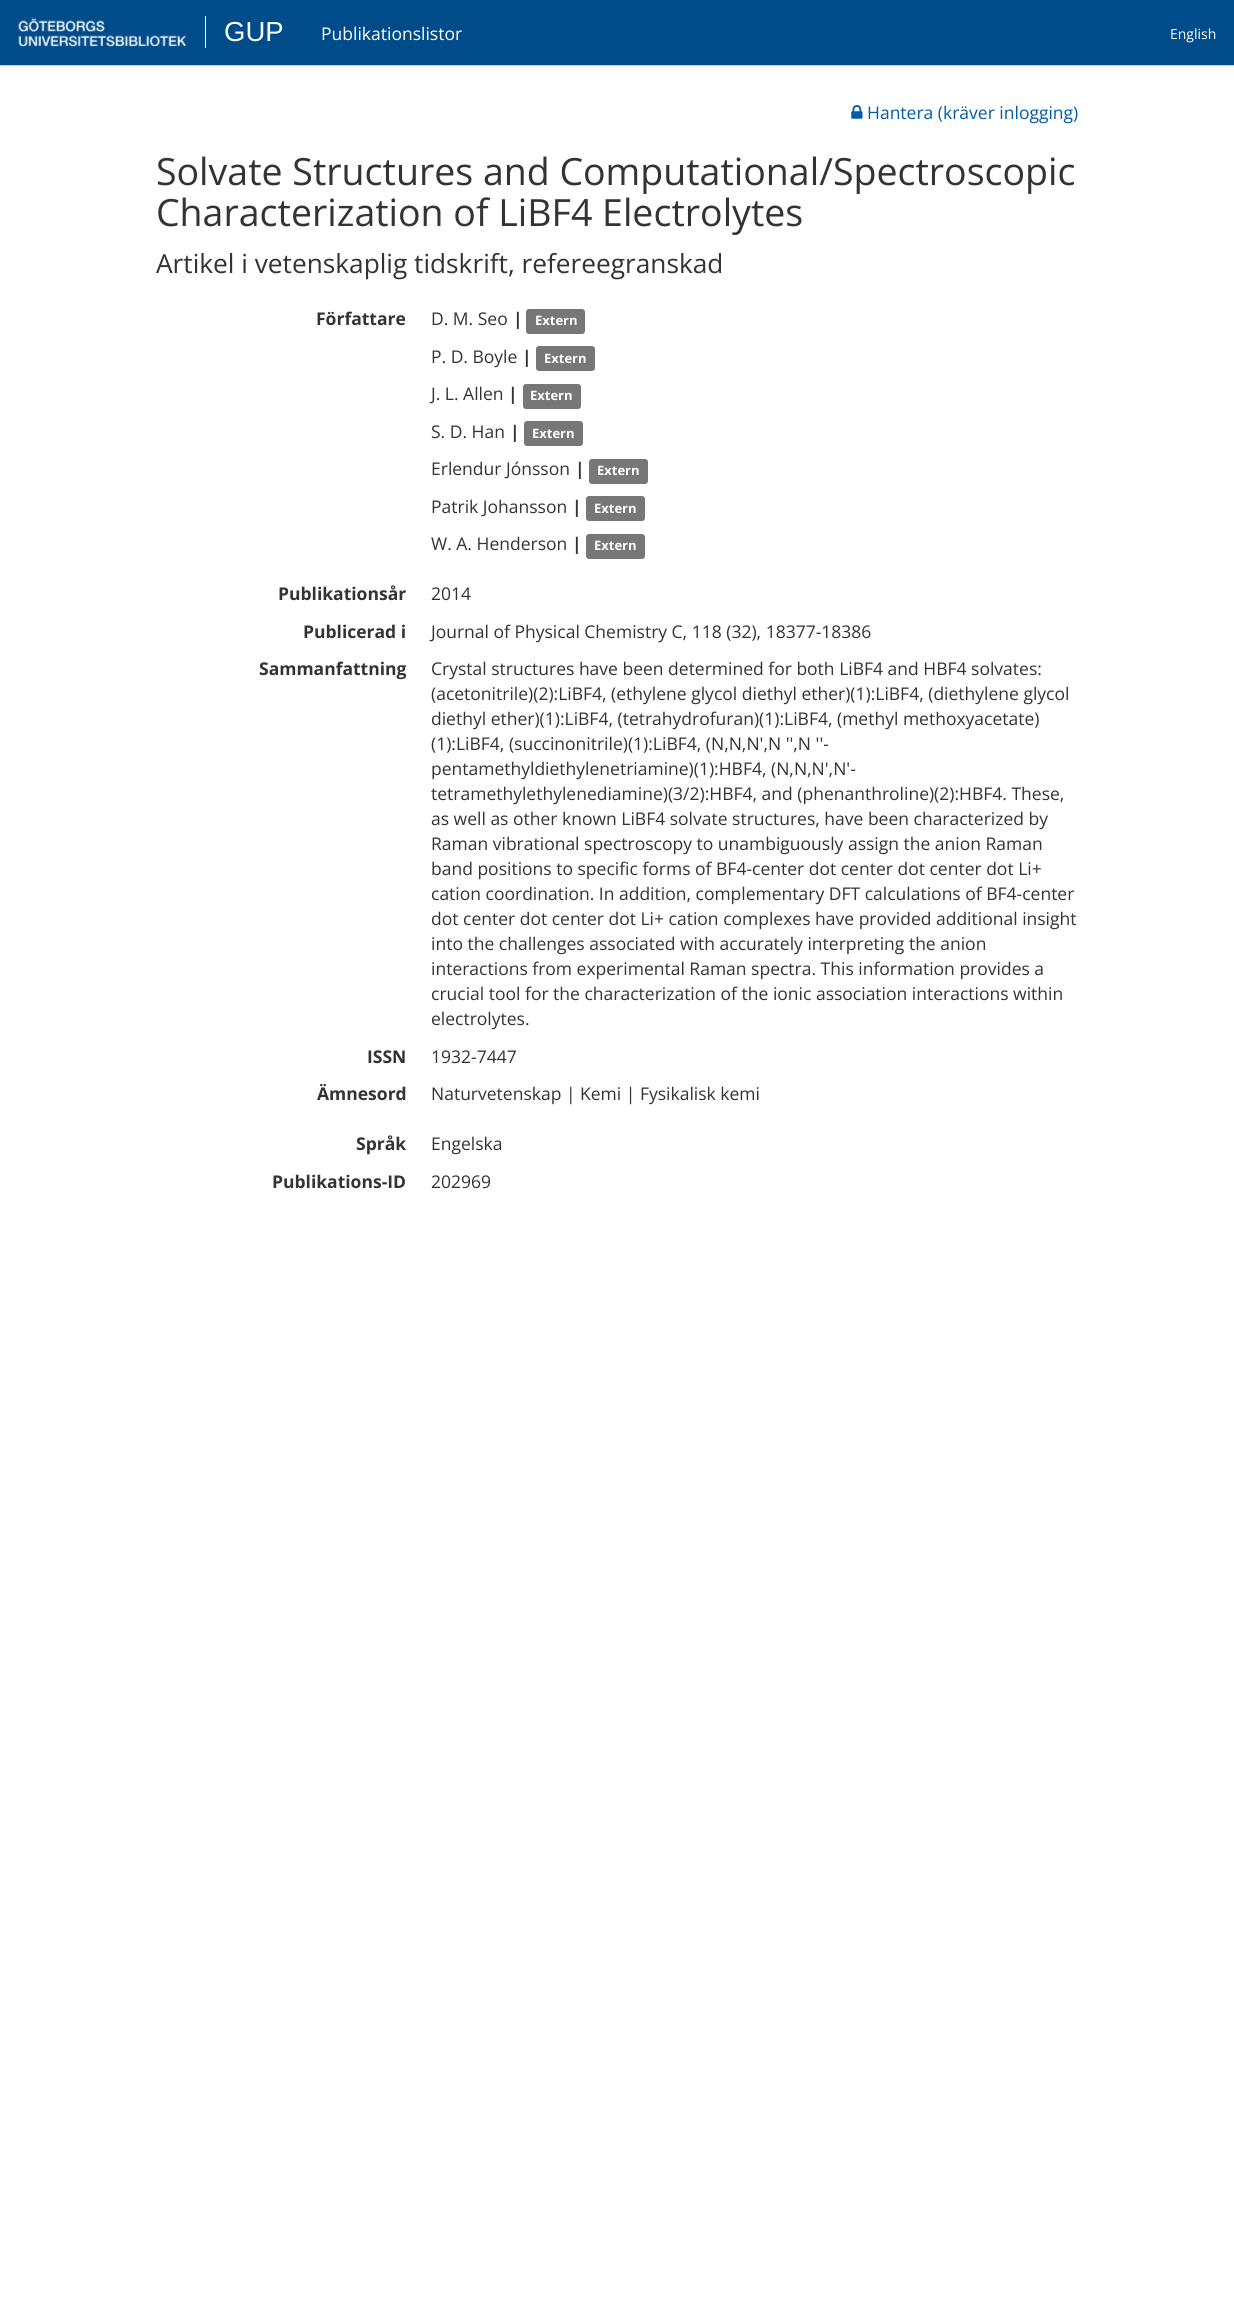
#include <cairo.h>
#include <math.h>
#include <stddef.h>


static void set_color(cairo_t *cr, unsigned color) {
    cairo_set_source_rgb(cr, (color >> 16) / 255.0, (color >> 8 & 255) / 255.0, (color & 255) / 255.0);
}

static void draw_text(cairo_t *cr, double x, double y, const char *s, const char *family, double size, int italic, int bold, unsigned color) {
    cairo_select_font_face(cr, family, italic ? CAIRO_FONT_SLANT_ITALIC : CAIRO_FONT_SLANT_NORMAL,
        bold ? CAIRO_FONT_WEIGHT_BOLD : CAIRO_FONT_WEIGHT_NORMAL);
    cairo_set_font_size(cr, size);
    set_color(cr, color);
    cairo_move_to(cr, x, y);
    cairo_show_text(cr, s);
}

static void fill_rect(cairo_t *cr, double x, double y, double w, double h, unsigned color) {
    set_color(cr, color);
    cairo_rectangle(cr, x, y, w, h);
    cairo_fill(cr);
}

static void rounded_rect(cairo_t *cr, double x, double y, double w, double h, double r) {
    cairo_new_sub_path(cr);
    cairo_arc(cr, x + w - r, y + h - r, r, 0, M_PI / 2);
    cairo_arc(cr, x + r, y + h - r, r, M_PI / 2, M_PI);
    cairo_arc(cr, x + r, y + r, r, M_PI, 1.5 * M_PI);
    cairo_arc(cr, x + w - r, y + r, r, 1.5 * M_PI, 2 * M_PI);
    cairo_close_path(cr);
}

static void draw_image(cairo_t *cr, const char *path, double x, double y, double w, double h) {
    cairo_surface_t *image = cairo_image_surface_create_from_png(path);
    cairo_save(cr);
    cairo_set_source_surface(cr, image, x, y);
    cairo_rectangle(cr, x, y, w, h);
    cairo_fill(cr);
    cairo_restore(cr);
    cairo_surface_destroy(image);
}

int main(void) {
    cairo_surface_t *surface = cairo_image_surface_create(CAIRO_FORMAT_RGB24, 1234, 2316);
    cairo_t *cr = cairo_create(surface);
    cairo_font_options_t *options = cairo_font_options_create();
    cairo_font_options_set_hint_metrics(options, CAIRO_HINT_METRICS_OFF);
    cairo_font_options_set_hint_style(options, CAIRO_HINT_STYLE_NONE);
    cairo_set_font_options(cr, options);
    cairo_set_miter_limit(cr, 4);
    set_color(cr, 0xFFFFFF);
    cairo_paint(cr);
    fill_rect(cr, 0, 0, 1234, 65, 0x004B89);
    fill_rect(cr, 0, 65, 1234, 1, 0xCCCCCC);
    draw_image(cr, "assets/img1.png", 18, 18, 168, 29);
    fill_rect(cr, 205, 16, 1, 32, 0xFFFFFF);
    draw_text(cr, 224, 41, "GUP", "Liberation Sans", 27.5, 0, 0, 0xFFFFFF);
    draw_text(cr, 321, 40, "Publikationslistor", "Open Sans", 17.5, 0, 0, 0xFFFFFF);
    draw_text(cr, 1170, 39, "English", "Open Sans", 14, 0, 0, 0xFFFFFF);
    draw_image(cr, "assets/img2.png", 851, 105, 12, 14);
    draw_text(cr, 867, 119, "Hantera (kräver inlogging)", "Open Sans", 17.5, 0, 0, 0x025DA6);
    draw_text(cr, 156, 185, "Solvate Structures and Computational/Spectroscopic", "Open Sans", 37.5, 0, 0, 0x333333);
    draw_text(cr, 156, 226, "Characterization of LiBF4 Electrolytes", "Open Sans", 37.5, 0, 0, 0x333333);
    draw_text(cr, 156, 273, "Artikel i vetenskaplig tidskrift, refereegranskad", "Open Sans", 26.25, 0, 0, 0x333333);
    draw_text(cr, 316, 325, "Författare", "Open Sans", 17.5, 0, 1, 0x333333);
    draw_text(cr, 431, 325, "D. M. Seo", "Open Sans", 17.5, 0, 0, 0x333333);
    draw_text(cr, 513, 325, "|", "Open Sans", 17.5, 0, 1, 0x333333);
    set_color(cr, 0x777777);
    rounded_rect(cr, 526, 309, 59, 25, 3);
    cairo_fill(cr);
    draw_text(cr, 535, 325, "Extern", "Open Sans", 13, 0, 1, 0xFFFFFF);
    draw_text(cr, 431, 363, "P. D. Boyle", "Open Sans", 17.5, 0, 0, 0x333333);
    draw_text(cr, 522, 363, "|", "Open Sans", 17.5, 0, 1, 0x333333);
    set_color(cr, 0x777777);
    rounded_rect(cr, 536, 346, 59, 25, 3);
    cairo_fill(cr);
    draw_text(cr, 544, 363, "Extern", "Open Sans", 13, 0, 1, 0xFFFFFF);
    draw_text(cr, 431, 400, "J. L. Allen", "Open Sans", 17.5, 0, 0, 0x333333);
    draw_text(cr, 508, 400, "|", "Open Sans", 17.5, 0, 1, 0x333333);
    set_color(cr, 0x777777);
    rounded_rect(cr, 523, 384, 58, 25, 3);
    cairo_fill(cr);
    draw_text(cr, 530, 400, "Extern", "Open Sans", 13, 0, 1, 0xFFFFFF);
    draw_text(cr, 431, 438, "S. D. Han", "Open Sans", 17.5, 0, 0, 0x333333);
    draw_text(cr, 510, 438, "|", "Open Sans", 17.5, 0, 1, 0x333333);
    set_color(cr, 0x777777);
    rounded_rect(cr, 524, 421, 59, 25, 3);
    cairo_fill(cr);
    draw_text(cr, 532, 438, "Extern", "Open Sans", 13, 0, 1, 0xFFFFFF);
    draw_text(cr, 431, 475, "Erlendur Jónsson", "Open Sans", 17.5, 0, 0, 0x333333);
    draw_text(cr, 575, 475, "|", "Open Sans", 17.5, 0, 1, 0x333333);
    set_color(cr, 0x777777);
    rounded_rect(cr, 589, 459, 59, 25, 3);
    cairo_fill(cr);
    draw_text(cr, 597, 475, "Extern", "Open Sans", 13, 0, 1, 0xFFFFFF);
    draw_text(cr, 431, 513, "Patrik Johansson", "Open Sans", 17.5, 0, 0, 0x333333);
    draw_text(cr, 572, 513, "|", "Open Sans", 17.5, 0, 1, 0x333333);
    set_color(cr, 0x777777);
    rounded_rect(cr, 586, 496, 59, 25, 3);
    cairo_fill(cr);
    draw_text(cr, 594, 513, "Extern", "Open Sans", 13, 0, 1, 0xFFFFFF);
    draw_text(cr, 431, 550, "W. A. Henderson", "Open Sans", 17.5, 0, 0, 0x333333);
    draw_text(cr, 572, 550, "|", "Open Sans", 17.5, 0, 1, 0x333333);
    set_color(cr, 0x777777);
    rounded_rect(cr, 586, 534, 59, 25, 3);
    cairo_fill(cr);
    draw_text(cr, 594, 550, "Extern", "Open Sans", 13, 0, 1, 0xFFFFFF);
    draw_text(cr, 278, 600, "Publikationsår", "Open Sans", 17.5, 0, 1, 0x333333);
    draw_text(cr, 431, 600, "2014", "Open Sans", 17.5, 0, 0, 0x333333);
    draw_text(cr, 303, 638, "Publicerad i", "Open Sans", 17.5, 0, 1, 0x333333);
    draw_text(cr, 431, 638, "Journal of Physical Chemistry C, 118 (32), 18377-18386", "Open Sans", 17.5, 0, 0, 0x333333);
    draw_text(cr, 259, 675, "Sammanfattning", "Open Sans", 17.5, 0, 1, 0x333333);
    draw_text(cr, 431, 675, "Crystal structures have been determined for both LiBF4 and HBF4 solvates:", "Open Sans", 17.5, 0, 0, 0x333333);
    draw_text(cr, 431, 700, "(acetonitrile)(2):LiBF4, (ethylene glycol diethyl ether)(1):LiBF4, (diethylene glycol", "Open Sans", 17.5, 0, 0, 0x333333);
    draw_text(cr, 431, 725, "diethyl ether)(1):LiBF4, (tetrahydrofuran)(1):LiBF4, (methyl methoxyacetate)", "Open Sans", 17.5, 0, 0, 0x333333);
    draw_text(cr, 431, 750, "(1):LiBF4, (succinonitrile)(1):LiBF4, (N,N,N',N '',N ''-", "Open Sans", 17.5, 0, 0, 0x333333);
    draw_text(cr, 431, 775, "pentamethyldiethylenetriamine)(1):HBF4, (N,N,N',N'-", "Open Sans", 17.5, 0, 0, 0x333333);
    draw_text(cr, 431, 800, "tetramethylethylenediamine)(3/2):HBF4, and (phenanthroline)(2):HBF4. These,", "Open Sans", 17.5, 0, 0, 0x333333);
    draw_text(cr, 431, 825, "as well as other known LiBF4 solvate structures, have been characterized by", "Open Sans", 17.5, 0, 0, 0x333333);
    draw_text(cr, 431, 850, "Raman vibrational spectroscopy to unambiguously assign the anion Raman", "Open Sans", 17.5, 0, 0, 0x333333);
    draw_text(cr, 431, 875, "band positions to specific forms of BF4-center dot center dot center dot Li+", "Open Sans", 17.5, 0, 0, 0x333333);
    draw_text(cr, 431, 900, "cation coordination. In addition, complementary DFT calculations of BF4-center", "Open Sans", 17.5, 0, 0, 0x333333);
    draw_text(cr, 431, 925, "dot center dot center dot Li+ cation complexes have provided additional insight", "Open Sans", 17.5, 0, 0, 0x333333);
    draw_text(cr, 431, 950, "into the challenges associated with accurately interpreting the anion", "Open Sans", 17.5, 0, 0, 0x333333);
    draw_text(cr, 431, 975, "interactions from experimental Raman spectra. This information provides a", "Open Sans", 17.5, 0, 0, 0x333333);
    draw_text(cr, 431, 1000, "crucial tool for the characterization of the ionic association interactions within", "Open Sans", 17.5, 0, 0, 0x333333);
    draw_text(cr, 431, 1025, "electrolytes.", "Open Sans", 17.5, 0, 0, 0x333333);
    draw_text(cr, 367, 1063, "ISSN", "Open Sans", 17.5, 0, 1, 0x333333);
    draw_text(cr, 431, 1063, "1932-7447", "Open Sans", 17.5, 0, 0, 0x333333);
    draw_text(cr, 317, 1100, "Ämnesord", "Open Sans", 17.5, 0, 1, 0x333333);
    draw_text(cr, 431, 1100, "Naturvetenskap | Kemi | Fysikalisk kemi", "Open Sans", 17.5, 0, 0, 0x333333);
    draw_text(cr, 356, 1150, "Språk", "Open Sans", 17.5, 0, 1, 0x333333);
    draw_text(cr, 431, 1150, "Engelska", "Open Sans", 17.5, 0, 0, 0x333333);
    draw_text(cr, 272, 1188, "Publikations-ID", "Open Sans", 17.5, 0, 1, 0x333333);
    draw_text(cr, 431, 1188, "202969", "Open Sans", 17.5, 0, 0, 0x333333);
    cairo_surface_write_to_png(surface, "output.png");
    cairo_font_options_destroy(options);
    cairo_destroy(cr);
    cairo_surface_destroy(surface);
    return 0;
}
